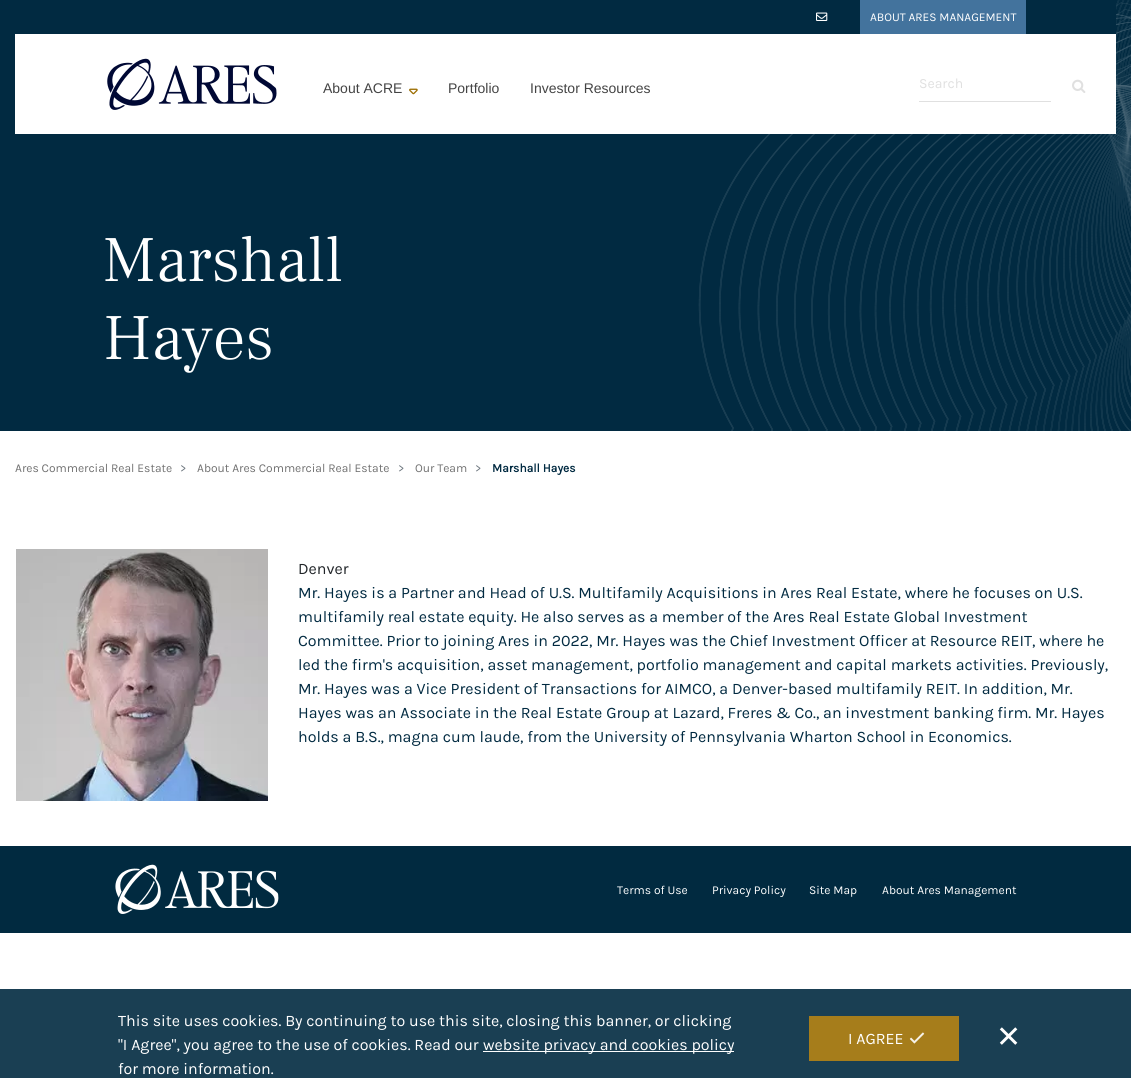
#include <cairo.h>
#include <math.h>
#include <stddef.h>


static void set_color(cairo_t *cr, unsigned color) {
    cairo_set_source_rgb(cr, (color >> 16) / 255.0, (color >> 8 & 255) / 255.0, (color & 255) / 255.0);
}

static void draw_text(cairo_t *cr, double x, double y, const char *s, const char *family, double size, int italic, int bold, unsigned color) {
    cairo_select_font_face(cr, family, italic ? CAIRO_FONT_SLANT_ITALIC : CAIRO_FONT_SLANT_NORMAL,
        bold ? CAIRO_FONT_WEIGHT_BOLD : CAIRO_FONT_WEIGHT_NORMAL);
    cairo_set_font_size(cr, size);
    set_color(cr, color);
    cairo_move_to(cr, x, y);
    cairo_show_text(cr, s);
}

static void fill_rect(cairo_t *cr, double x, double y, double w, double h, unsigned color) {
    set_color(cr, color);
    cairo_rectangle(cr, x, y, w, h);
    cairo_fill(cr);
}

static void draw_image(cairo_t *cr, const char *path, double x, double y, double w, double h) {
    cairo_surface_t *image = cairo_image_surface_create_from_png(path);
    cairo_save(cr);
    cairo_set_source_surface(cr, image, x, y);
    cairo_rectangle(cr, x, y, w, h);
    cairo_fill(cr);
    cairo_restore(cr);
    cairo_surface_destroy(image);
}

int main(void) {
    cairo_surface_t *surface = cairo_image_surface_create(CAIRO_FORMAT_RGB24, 1131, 1078);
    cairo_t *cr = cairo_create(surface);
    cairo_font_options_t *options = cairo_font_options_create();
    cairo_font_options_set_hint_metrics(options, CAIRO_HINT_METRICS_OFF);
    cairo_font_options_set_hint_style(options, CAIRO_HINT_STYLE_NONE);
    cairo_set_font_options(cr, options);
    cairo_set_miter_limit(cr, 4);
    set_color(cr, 0xFFFFFF);
    cairo_paint(cr);
    fill_rect(cr, 0, 0, 698, 431, 0x012A41);
    draw_image(cr, "assets/img1.png", 698, 0, 433, 431);
    fill_rect(cr, 1038, 0, 78, 34, 0x012A41);
    draw_image(cr, "assets/img2.png", 816, 12, 12, 9);
    fill_rect(cr, 860, 0, 166, 34, 0x43739D);
    draw_text(cr, 870, 21, "ABOUT ARES MANAGEMENT", "Karla", 11.9, 0, 0, 0xFFFFFF);
    fill_rect(cr, 15, 34, 1101, 100, 0xFFFFFF);
    draw_image(cr, "assets/img3.png", 107, 58, 170, 52);
    draw_text(cr, 323, 93, "About ACRE", "Liberation Sans", 14, 0, 0, 0x444444);
    draw_image(cr, "assets/img4.png", 409, 88, 9, 7);
    draw_text(cr, 448, 93, "Portfolio", "Liberation Sans", 14, 0, 0, 0x444444);
    draw_text(cr, 530, 93, "Investor Resources", "Liberation Sans", 14, 0, 0, 0x444444);
    fill_rect(cr, 919, 101, 132, 1, 0xE0E0E0);
    draw_text(cr, 919, 88, "Search", "Karla", 14, 0, 0, 0xE0E0E0);
    draw_image(cr, "assets/img5.png", 1072, 79, 14, 14);
    draw_text(cr, 103, 281, "Marshall", "Frank Ruhl Libre Light", 65, 0, 0, 0xFFFFFF);
    draw_text(cr, 103, 359, "Hayes", "Frank Ruhl Libre Light", 65, 0, 0, 0xFFFFFF);
    draw_text(cr, 15, 472, "Ares Commercial Real Estate", "Karla", 12, 0, 0, 0x707070);
    draw_text(cr, 180, 472, ">", "Karla", 12, 0, 0, 0x6C757D);
    draw_text(cr, 197, 472, "About Ares Commercial Real Estate", "Karla", 12, 0, 0, 0x707070);
    draw_text(cr, 398, 472, ">", "Karla", 12, 0, 0, 0x6C757D);
    draw_text(cr, 415, 472, "Our Team", "Karla", 12, 0, 0, 0x707070);
    draw_text(cr, 475, 472, ">", "Karla", 12, 0, 0, 0x6C757D);
    draw_text(cr, 492, 472, "Marshall Hayes", "Karla", 12, 0, 1, 0x012A41);
    draw_image(cr, "assets/img6.png", 16, 549, 252, 252);
    draw_text(cr, 298, 574, "Denver", "Karla", 16, 0, 0, 0x212529);
    draw_text(cr, 298, 598, "Mr. Hayes is a Partner and Head of U.S. Multifamily Acquisitions in Ares Real Estate, where he focuses on U.S.", "Karla", 16, 0, 0, 0x012A41);
    draw_text(cr, 298, 622, "multifamily real estate equity. He also serves as a member of the Ares Real Estate Global Investment", "Karla", 16, 0, 0, 0x012A41);
    draw_text(cr, 298, 646, "Committee. Prior to joining Ares in 2022, Mr. Hayes was the Chief Investment Officer at Resource REIT, where he", "Karla", 16, 0, 0, 0x012A41);
    draw_text(cr, 298, 670, "led the firm's acquisition, asset management, portfolio management and capital markets activities. Previously,", "Karla", 16, 0, 0, 0x012A41);
    draw_text(cr, 298, 694, "Mr. Hayes was a Vice President of Transactions for AIMCO, a Denver-based multifamily REIT. In addition, Mr.", "Karla", 16, 0, 0, 0x012A41);
    draw_text(cr, 298, 718, "Hayes was an Associate in the Real Estate Group at Lazard, Freres & Co., an investment banking firm. Mr. Hayes", "Karla", 16, 0, 0, 0x012A41);
    draw_text(cr, 298, 742, "holds a B.S., magna cum laude, from the University of Pennsylvania Wharton School in Economics.", "Karla", 16, 0, 0, 0x012A41);
    fill_rect(cr, 0, 846, 1131, 87, 0x012A40);
    draw_image(cr, "assets/img7.png", 115, 864, 164, 50);
    draw_text(cr, 617, 894, "Terms of Use", "Karla", 12, 0, 0, 0xFFFFFF);
    draw_text(cr, 712, 894, "Privacy Policy", "Karla", 12, 0, 0, 0xFFFFFF);
    draw_text(cr, 809, 894, "Site Map", "Karla", 12, 0, 0, 0xFFFFFF);
    draw_text(cr, 882, 894, "About Ares Management", "Karla", 12, 0, 0, 0xFFFFFF);
    fill_rect(cr, 0, 989, 1131, 89, 0x1A3F53);
    draw_text(cr, 118, 1026, "This site uses cookies. By continuing to use this site, closing this banner, or clicking", "Karla", 16, 0, 0, 0xFFFFFF);
    draw_text(cr, 118, 1050, "\"I Agree\", you agree to the use of cookies. Read our", "Karla", 16, 0, 0, 0xFFFFFF);
    fill_rect(cr, 483, 1051, 251, 1, 0xFFFFFF);
    draw_text(cr, 483, 1050, "website privacy and cookies policy", "Karla", 16, 0, 0, 0xFFFFFF);
    draw_text(cr, 118, 1074, "for more information.", "Karla", 16, 0, 0, 0xFFFFFF);
    fill_rect(cr, 809, 1016, 150, 45, 0xA67D1B);
    draw_text(cr, 848, 1044, "I AGREE", "Karla", 16, 0, 0, 0xFFFFFF);
    draw_image(cr, "assets/img8.png", 909, 1032, 16, 12);
    draw_text(cr, 996, 1047, "✕", "DejaVu Sans", 30, 0, 0, 0xFFFFFF);
    cairo_surface_write_to_png(surface, "output.png");
    cairo_font_options_destroy(options);
    cairo_destroy(cr);
    cairo_surface_destroy(surface);
    return 0;
}
